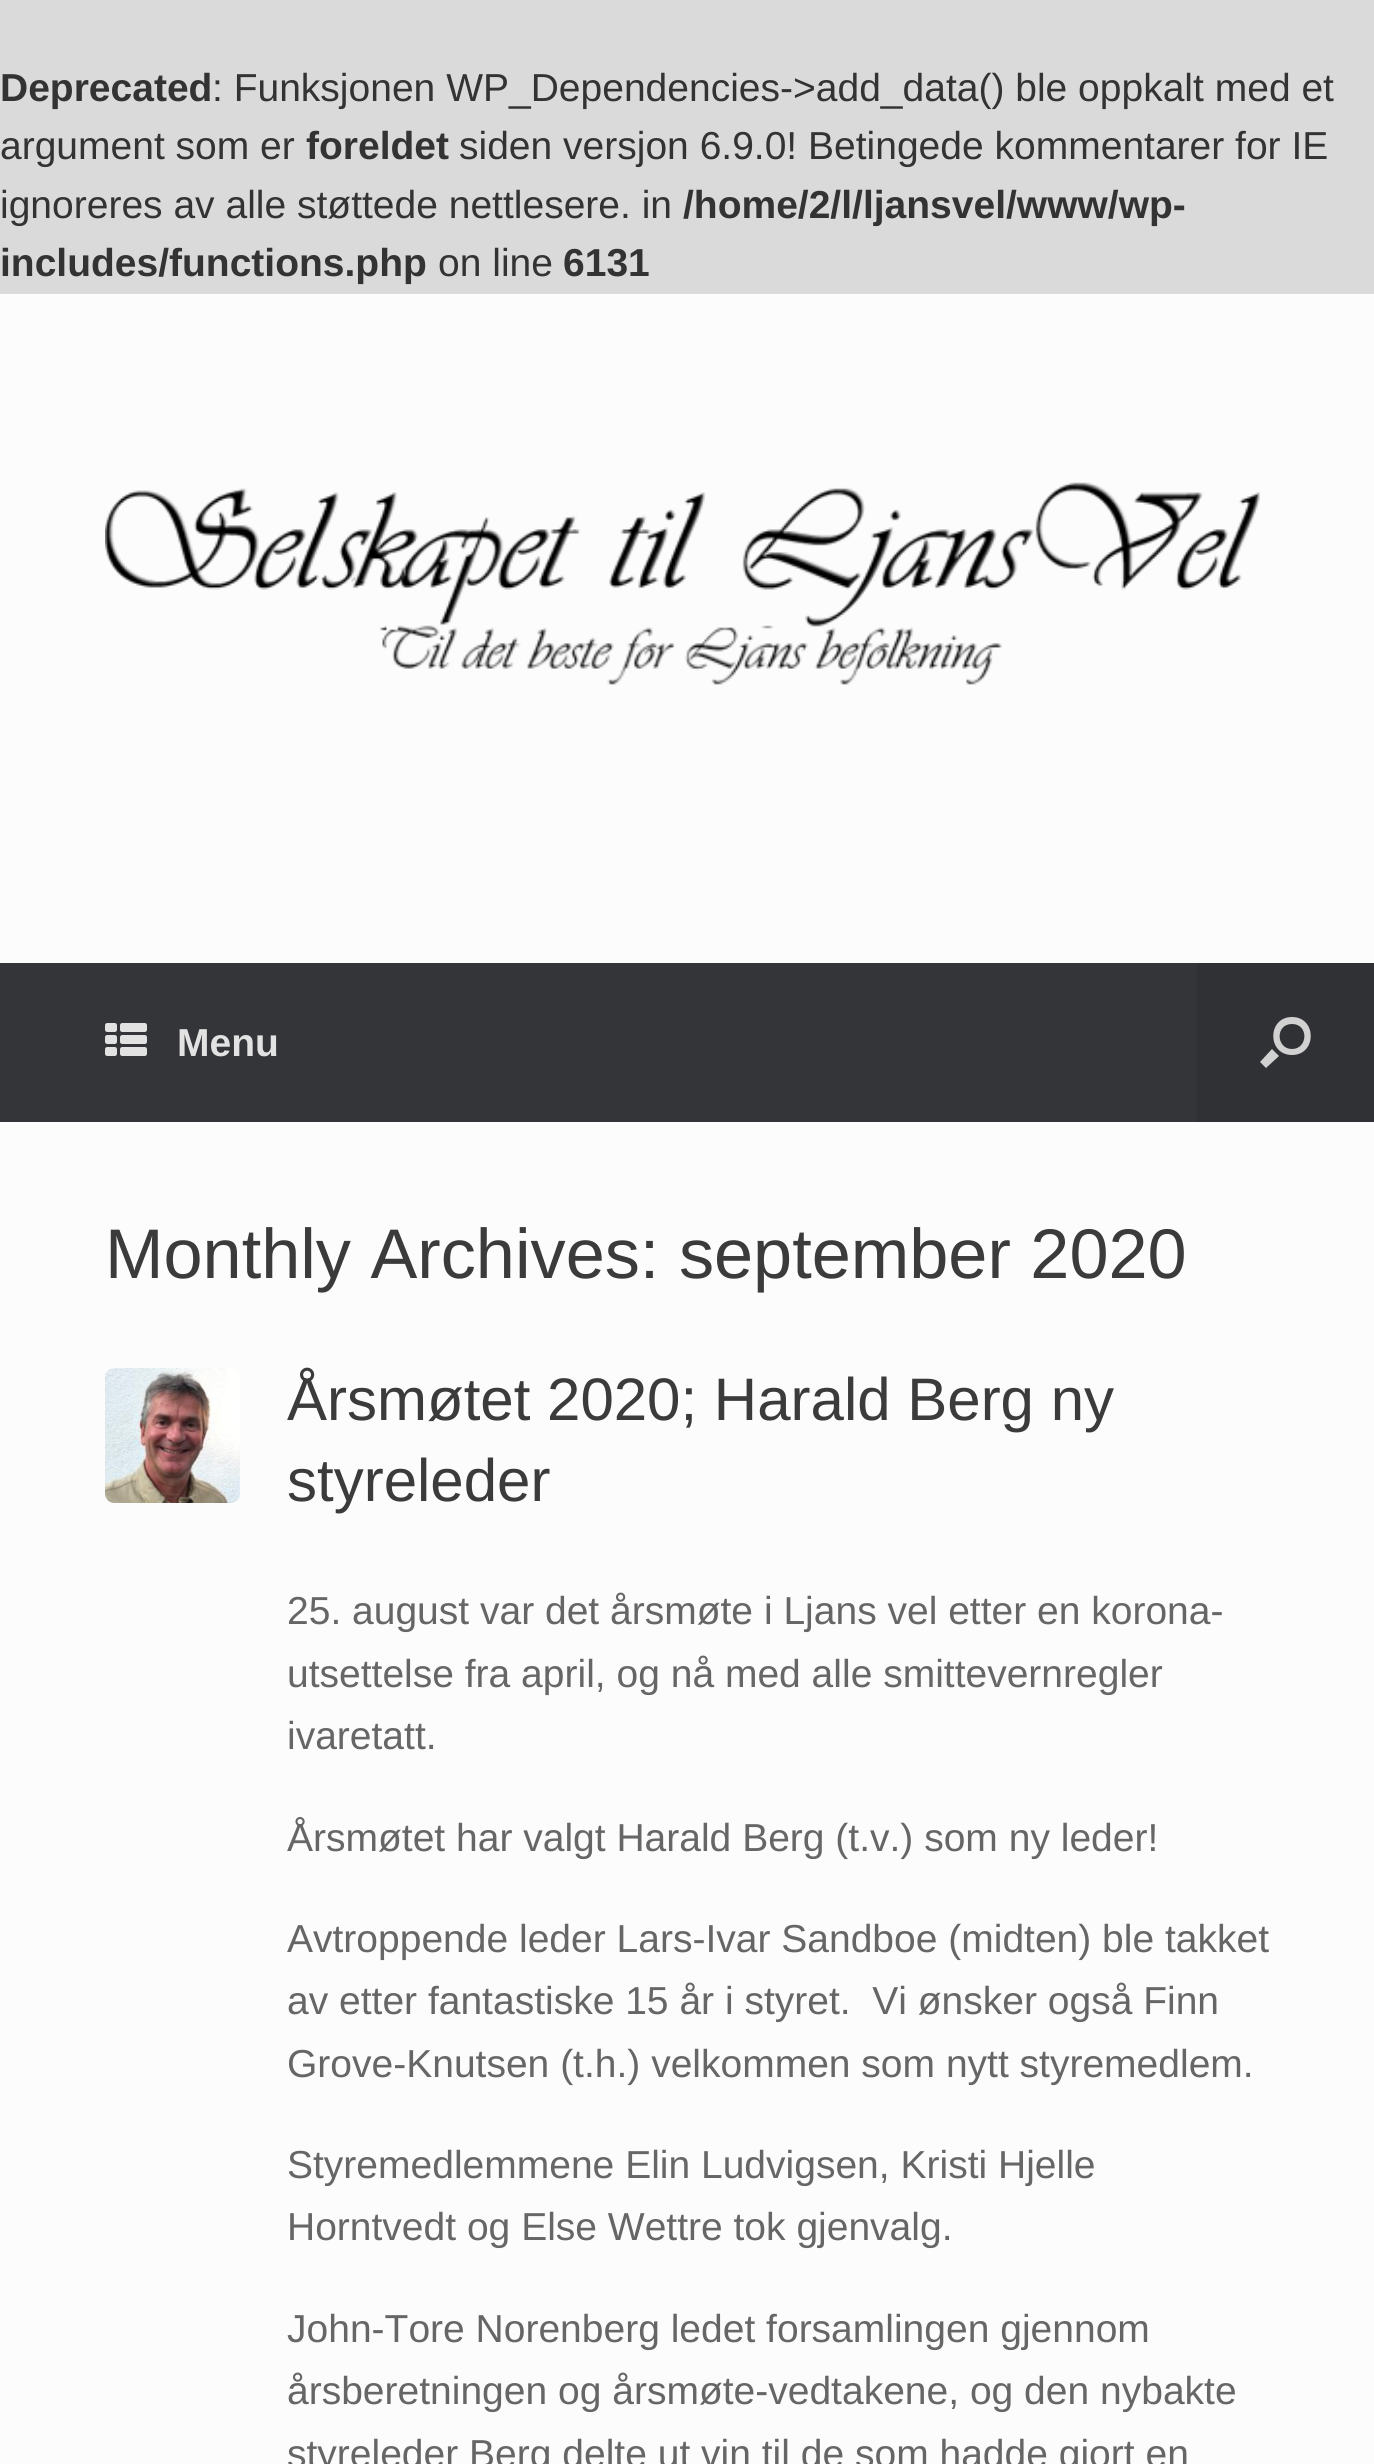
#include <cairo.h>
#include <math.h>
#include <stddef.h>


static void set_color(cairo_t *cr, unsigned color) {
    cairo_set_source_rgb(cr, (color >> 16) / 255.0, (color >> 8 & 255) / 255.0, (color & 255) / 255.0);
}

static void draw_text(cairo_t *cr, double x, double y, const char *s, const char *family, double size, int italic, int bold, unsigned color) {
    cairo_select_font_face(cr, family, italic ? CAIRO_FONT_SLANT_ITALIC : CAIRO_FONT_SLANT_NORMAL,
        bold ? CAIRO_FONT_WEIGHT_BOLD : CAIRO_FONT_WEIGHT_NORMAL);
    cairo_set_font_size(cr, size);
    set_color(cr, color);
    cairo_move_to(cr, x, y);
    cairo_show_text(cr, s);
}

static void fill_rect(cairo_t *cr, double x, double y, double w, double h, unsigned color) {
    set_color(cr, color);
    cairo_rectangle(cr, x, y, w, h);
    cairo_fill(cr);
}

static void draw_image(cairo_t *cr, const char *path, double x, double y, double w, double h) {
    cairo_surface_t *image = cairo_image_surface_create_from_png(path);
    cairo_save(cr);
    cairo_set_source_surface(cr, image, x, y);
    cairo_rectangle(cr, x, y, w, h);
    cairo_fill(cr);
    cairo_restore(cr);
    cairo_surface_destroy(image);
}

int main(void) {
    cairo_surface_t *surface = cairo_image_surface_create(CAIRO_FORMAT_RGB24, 1374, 2464);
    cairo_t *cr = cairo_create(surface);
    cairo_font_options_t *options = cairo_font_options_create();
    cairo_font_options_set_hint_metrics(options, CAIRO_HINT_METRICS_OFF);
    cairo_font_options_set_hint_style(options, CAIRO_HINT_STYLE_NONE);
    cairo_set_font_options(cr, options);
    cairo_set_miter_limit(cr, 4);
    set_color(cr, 0xDADADA);
    cairo_paint(cr);
    draw_text(cr, 0, 101, "Deprecated", "Liberation Sans", 39, 0, 1, 0x333333);
    draw_text(cr, 212, 101, ": Funksjonen WP_Dependencies->add_data() ble oppkalt med et", "Liberation Sans", 39, 0, 0, 0x333333);
    draw_text(cr, 0, 159, "argument som er", "Liberation Sans", 39, 0, 0, 0x333333);
    draw_text(cr, 306, 159, "foreldet", "Liberation Sans", 39, 0, 1, 0x333333);
    draw_text(cr, 459, 159, "siden versjon 6.9.0! Betingede kommentarer for IE", "Liberation Sans", 39, 0, 0, 0x333333);
    draw_text(cr, 0, 218, "ignoreres av alle støttede nettlesere. in", "Liberation Sans", 39, 0, 0, 0x333333);
    draw_text(cr, 683, 218, "/home/2/l/ljansvel/www/wp-", "Liberation Sans", 39, 0, 1, 0x333333);
    draw_text(cr, 0, 276, "includes/functions.php", "Liberation Sans", 39, 0, 1, 0x333333);
    draw_text(cr, 438, 276, "on line", "Liberation Sans", 39, 0, 0, 0x333333);
    draw_text(cr, 563, 276, "6131", "Liberation Sans", 39, 0, 1, 0x333333);
    fill_rect(cr, 0, 294, 1374, 669, 0xFCFCFC);
    draw_image(cr, "assets/img1.png", 105, 482, 1155, 203);
    fill_rect(cr, 0, 963, 1197, 159, 0x343538);
    draw_image(cr, "assets/img2.png", 105, 1023, 42, 33);
    draw_text(cr, 177, 1056, "Menu", "Liberation Sans", 39, 0, 1, 0xE2E2E2);
    fill_rect(cr, 1197, 963, 177, 159, 0x303134);
    set_color(cr, 0xD1D1D1);
    cairo_new_path(cr);
    cairo_move_to(cr, 1292, 1024);
    cairo_curve_to(cr, 1309, 1024, 1308, 1049, 1292, 1049);
    cairo_curve_to(cr, 1276, 1049, 1275, 1024, 1292, 1024);
    cairo_close_path(cr);
    cairo_move_to(cr, 1292, 1017);
    cairo_curve_to(cr, 1267, 1017, 1267, 1055, 1292, 1055);
    cairo_curve_to(cr, 1317, 1055, 1317, 1017, 1292, 1017);
    cairo_close_path(cr);
    cairo_move_to(cr, 1272, 1049);
    cairo_line_to(cr, 1279, 1056);
    cairo_line_to(cr, 1266, 1068);
    cairo_line_to(cr, 1260, 1062);
    cairo_close_path(cr);
    cairo_fill(cr);
    fill_rect(cr, 0, 1122, 1374, 1342, 0xFCFCFC);
    draw_text(cr, 105, 1278, "Monthly Archives: september 2020", "Liberation Sans", 70.25, 0, 0, 0x3B3B3B);
    draw_image(cr, "assets/img3.png", 105, 1368, 135, 135);
    draw_text(cr, 287, 1420, "Årsmøtet 2020; Harald Berg ny", "Liberation Sans", 60, 0, 0, 0x3B3B3B);
    draw_text(cr, 287, 1501, "styreleder", "Liberation Sans", 60, 0, 0, 0x3B3B3B);
    draw_text(cr, 287, 1624, "25. august var det årsmøte i Ljans vel etter en korona-", "Liberation Sans", 39, 0, 0, 0x666666);
    draw_text(cr, 287, 1687, "utsettelse fra april, og nå med alle smittevernregler", "Liberation Sans", 39, 0, 0, 0x666666);
    draw_text(cr, 287, 1749, "ivaretatt.", "Liberation Sans", 39, 0, 0, 0x666666);
    draw_text(cr, 287, 1851, "Årsmøtet har valgt Harald Berg (t.v.) som ny leder!", "Liberation Sans", 39, 0, 0, 0x666666);
    draw_text(cr, 287, 1952, "Avtroppende leder Lars-Ivar Sandboe (midten) ble takket", "Liberation Sans", 39, 0, 0, 0x666666);
    draw_text(cr, 287, 2014, "av etter fantastiske 15 år i styret.  Vi ønsker også Finn", "Liberation Sans", 39, 0, 0, 0x666666);
    draw_text(cr, 287, 2077, "Grove-Knutsen (t.h.) velkommen som nytt styremedlem.", "Liberation Sans", 39, 0, 0, 0x666666);
    draw_text(cr, 287, 2178, "Styremedlemmene Elin Ludvigsen, Kristi Hjelle", "Liberation Sans", 39, 0, 0, 0x666666);
    draw_text(cr, 287, 2240, "Horntvedt og Else Wettre tok gjenvalg.", "Liberation Sans", 39, 0, 0, 0x666666);
    draw_text(cr, 287, 2342, "John-Tore Norenberg ledet forsamlingen gjennom", "Liberation Sans", 39, 0, 0, 0x666666);
    draw_text(cr, 287, 2404, "årsberetningen og årsmøte-vedtakene, og den nybakte", "Liberation Sans", 39, 0, 0, 0x666666);
    draw_text(cr, 287, 2467, "styreleder Berg delte ut vin til de som hadde gjort en", "Liberation Sans", 39, 0, 0, 0x666666);
    cairo_surface_write_to_png(surface, "output.png");
    cairo_font_options_destroy(options);
    cairo_destroy(cr);
    cairo_surface_destroy(surface);
    return 0;
}
